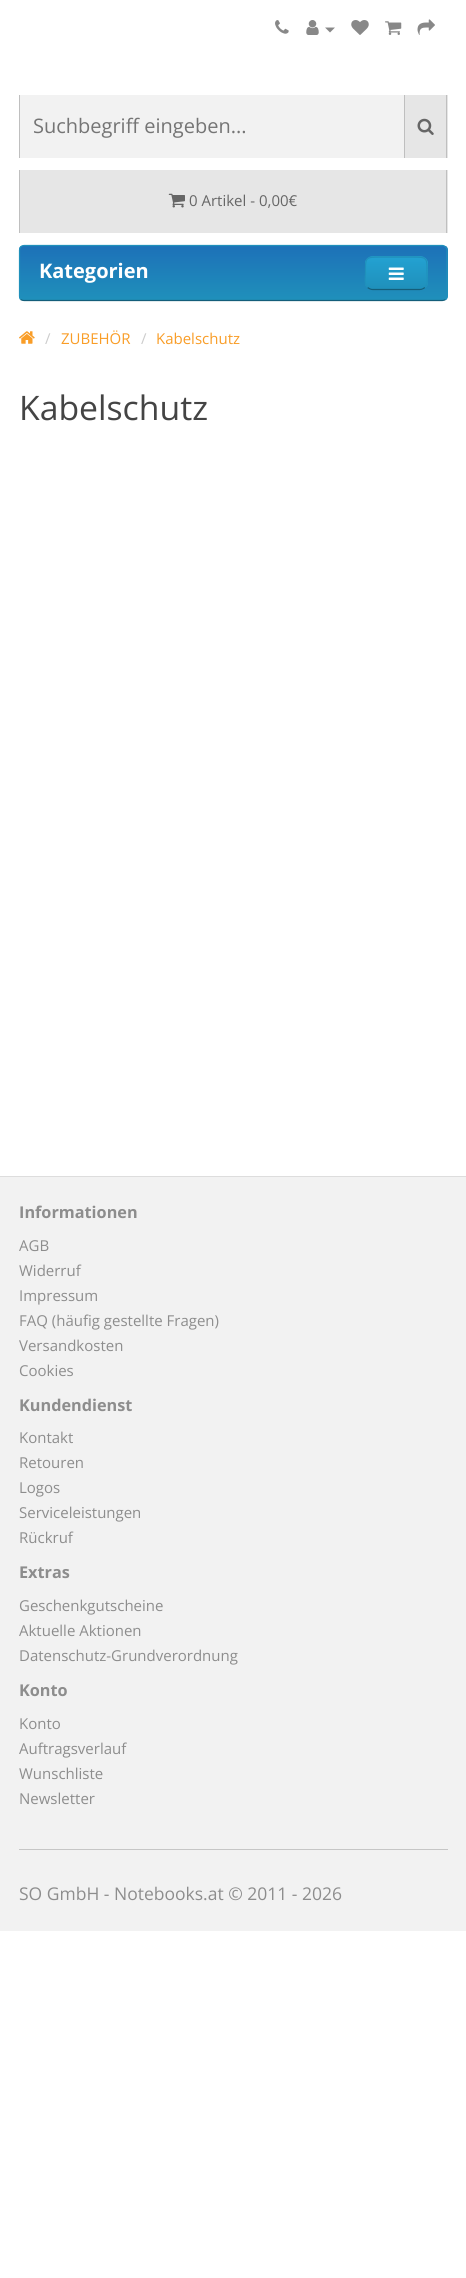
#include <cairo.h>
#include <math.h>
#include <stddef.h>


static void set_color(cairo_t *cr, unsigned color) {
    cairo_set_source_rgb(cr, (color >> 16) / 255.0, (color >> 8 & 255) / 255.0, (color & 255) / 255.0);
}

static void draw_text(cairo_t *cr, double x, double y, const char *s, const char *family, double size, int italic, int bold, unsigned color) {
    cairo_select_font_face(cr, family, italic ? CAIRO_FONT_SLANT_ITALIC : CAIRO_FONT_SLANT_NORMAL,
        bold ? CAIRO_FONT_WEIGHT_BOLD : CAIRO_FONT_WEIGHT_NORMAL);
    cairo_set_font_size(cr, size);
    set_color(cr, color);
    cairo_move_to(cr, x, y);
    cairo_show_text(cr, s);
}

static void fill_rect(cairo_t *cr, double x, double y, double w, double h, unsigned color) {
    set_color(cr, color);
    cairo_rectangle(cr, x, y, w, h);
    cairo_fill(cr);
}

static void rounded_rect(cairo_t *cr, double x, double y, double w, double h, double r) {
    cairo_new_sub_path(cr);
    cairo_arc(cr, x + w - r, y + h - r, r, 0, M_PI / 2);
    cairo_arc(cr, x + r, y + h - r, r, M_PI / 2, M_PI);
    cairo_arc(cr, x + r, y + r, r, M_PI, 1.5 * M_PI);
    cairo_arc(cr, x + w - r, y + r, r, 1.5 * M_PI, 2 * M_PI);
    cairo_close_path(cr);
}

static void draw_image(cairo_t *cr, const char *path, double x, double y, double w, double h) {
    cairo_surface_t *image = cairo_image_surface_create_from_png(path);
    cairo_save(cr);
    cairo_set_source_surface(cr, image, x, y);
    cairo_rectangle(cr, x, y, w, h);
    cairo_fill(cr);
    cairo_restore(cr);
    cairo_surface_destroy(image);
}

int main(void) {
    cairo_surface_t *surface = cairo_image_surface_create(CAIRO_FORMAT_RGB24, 466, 2278);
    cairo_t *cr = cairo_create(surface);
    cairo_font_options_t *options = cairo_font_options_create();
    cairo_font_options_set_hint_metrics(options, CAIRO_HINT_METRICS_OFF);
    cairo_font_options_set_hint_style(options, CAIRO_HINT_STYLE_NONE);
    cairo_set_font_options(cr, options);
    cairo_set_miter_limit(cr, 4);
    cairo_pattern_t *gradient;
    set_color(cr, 0xFFFFFF);
    cairo_paint(cr);
    draw_image(cr, "assets/img1.png", 275, 20, 14, 14);
    draw_image(cr, "assets/img2.png", 306, 20, 13, 15);
    set_color(cr, 0x888888);
    cairo_new_path(cr);
    cairo_move_to(cr, 325, 27.5);
    cairo_line_to(cr, 335, 27.5);
    cairo_line_to(cr, 330, 32.5);
    cairo_close_path(cr);
    cairo_fill(cr);
    draw_image(cr, "assets/img3.png", 351, 20, 18, 15);
    draw_image(cr, "assets/img4.png", 385, 21, 17, 14);
    draw_image(cr, "assets/img5.png", 417, 19, 18, 16);
    fill_rect(cr, 20, 95, 384, 63, 0xF2F2F2);
    fill_rect(cr, 19, 95, 1, 63, 0xBFBFBF);
    draw_text(cr, 33, 133, "Suchbegriff eingeben...", "Open Sans", 20, 0, 0, 0x757575);
    fill_rect(cr, 405, 95, 43, 63, 0xE6E6E6);
    fill_rect(cr, 446, 95, 1, 63, 0xBFBFBF);
    fill_rect(cr, 404, 95, 1, 63, 0xBFBFBF);
    draw_image(cr, "assets/img6.png", 417, 118, 17, 17);
    fill_rect(cr, 20, 170, 428, 63, 0xE6E6E6);
    fill_rect(cr, 446, 170, 1, 63, 0xBFBFBF);
    fill_rect(cr, 19, 170, 1, 63, 0xBFBFBF);
    draw_image(cr, "assets/img7.png", 168, 193, 17, 15);
    draw_text(cr, 189, 206, "0 Artikel - 0,00€", "Open Sans", 15, 0, 0, 0x666666);
    cairo_save(cr);
    rounded_rect(cr, 19, 245, 429, 56, 5);
    cairo_clip(cr);
    gradient = cairo_pattern_create_linear(233, 246, 233, 300);
    cairo_pattern_add_color_stop_rgba(gradient, 0, 0.114, 0.443, 0.722, 1);
    cairo_pattern_add_color_stop_rgba(gradient, 1, 0.122, 0.565, 0.733, 1);
    cairo_set_source(cr, gradient);
    cairo_pattern_destroy(gradient);
    cairo_rectangle(cr, 19, 246, 429, 54);
    cairo_fill(cr);
    cairo_restore(cr);
    cairo_new_path(cr);
    cairo_move_to(cr, 445.5, 299.5);
    cairo_curve_to(cr, 445, 300, 443.5, 300.5, 442.5, 300.5);
    cairo_line_to(cr, 24, 300.5);
    cairo_curve_to(cr, 22.5, 300.5, 21.5, 300, 20.5, 299.5);
    set_color(cr, 0x145E7A);
    cairo_set_line_width(cr, 1.2);
    cairo_stroke(cr);
    cairo_new_path(cr);
    cairo_move_to(cr, 20.5, 299.5);
    cairo_curve_to(cr, 20, 298.5, 19.5, 297.5, 19.5, 296);
    cairo_line_to(cr, 19.5, 250);
    cairo_curve_to(cr, 19.5, 249, 20, 247.5, 20.5, 247);
    cairo_curve_to(cr, 21.5, 246, 22.5, 245.5, 24, 245.5);
    cairo_line_to(cr, 442.5, 245.5);
    cairo_curve_to(cr, 443.5, 245.5, 445, 246, 445.5, 247);
    cairo_curve_to(cr, 446.5, 247.5, 447, 249, 447, 250);
    cairo_line_to(cr, 447, 296);
    cairo_curve_to(cr, 447, 297.5, 446.5, 298.5, 445.5, 299.5);
    set_color(cr, 0x1F90BB);
    cairo_stroke(cr);
    draw_text(cr, 39, 278, "Kategorien", "Open Sans", 20, 0, 1, 0xFFFFFF);
    set_color(cr, 0x229AC8);
    rounded_rect(cr, 365, 256, 63, 34, 8);
    cairo_fill(cr);
    cairo_save(cr);
    rounded_rect(cr, 365, 256, 63, 34, 8);
    cairo_clip(cr);
    gradient = cairo_pattern_create_linear(396, 258, 396, 289);
    cairo_pattern_add_color_stop_rgba(gradient, 0, 0.137, 0.631, 0.82, 1);
    cairo_pattern_add_color_stop_rgba(gradient, 1, 0.122, 0.565, 0.733, 1);
    cairo_set_source(cr, gradient);
    cairo_pattern_destroy(gradient);
    cairo_rectangle(cr, 365, 258, 63, 31);
    cairo_fill(cr);
    cairo_restore(cr);
    cairo_new_path(cr);
    cairo_move_to(cr, 425, 287.5);
    cairo_curve_to(cr, 423.5, 288.5, 422, 289.5, 420, 289.5);
    cairo_line_to(cr, 372.5, 289.5);
    cairo_curve_to(cr, 370.5, 289.5, 369, 288.5, 367.5, 287.5);
    set_color(cr, 0x145E7A);
    cairo_stroke(cr);
    cairo_new_path(cr);
    cairo_move_to(cr, 367.5, 287.5);
    cairo_curve_to(cr, 364, 284, 365.5, 277.5, 365.5, 273);
    cairo_curve_to(cr, 365.5, 258, 364.5, 257, 380.5, 257);
    cairo_line_to(cr, 412, 257);
    cairo_curve_to(cr, 428, 257, 427, 258, 427, 273);
    cairo_curve_to(cr, 427, 277.5, 428.5, 284, 425, 287.5);
    set_color(cr, 0x1F90BB);
    cairo_stroke(cr);
    draw_image(cr, "assets/img8.png", 388, 267, 16, 13);
    draw_image(cr, "assets/img9.png", 19, 331, 16, 13);
    draw_text(cr, 45, 344, "/", "Open Sans", 15, 0, 0, 0xCCCCCC);
    draw_text(cr, 61, 344, "ZUBEHÖR", "Open Sans", 15, 0, 0, 0xF99D27);
    draw_text(cr, 141, 344, "/", "Open Sans", 15, 0, 0, 0xCCCCCC);
    draw_text(cr, 156, 344, "Kabelschutz", "Open Sans", 15, 0, 0, 0xF99D27);
    draw_text(cr, 19, 420, "Kabelschutz", "Open Sans", 33.75, 0, 0, 0x444444);
    fill_rect(cr, 0, 1177, 466, 754, 0xF2F2F2);
    fill_rect(cr, 0, 1176, 466, 1, 0xDDDDDD);
    draw_text(cr, 19, 1218, "Informationen", "Open Sans", 16.25, 0, 1, 0x8D8D8D);
    draw_text(cr, 19, 1251, "AGB", "Open Sans", 15, 0, 0, 0x8D8D8D);
    draw_text(cr, 19, 1276, "Widerruf", "Open Sans", 15, 0, 0, 0x8D8D8D);
    draw_text(cr, 19, 1301, "Impressum", "Open Sans", 15, 0, 0, 0x8D8D8D);
    draw_text(cr, 19, 1326, "FAQ (häufig gestellte Fragen)", "Open Sans", 15, 0, 0, 0x8D8D8D);
    draw_text(cr, 19, 1351, "Versandkosten", "Open Sans", 15, 0, 0, 0x8D8D8D);
    draw_text(cr, 19, 1376, "Cookies", "Open Sans", 15, 0, 0, 0x8D8D8D);
    draw_text(cr, 19, 1411, "Kundendienst", "Open Sans", 16.25, 0, 1, 0x8D8D8D);
    draw_text(cr, 19, 1443, "Kontakt", "Open Sans", 15, 0, 0, 0x8D8D8D);
    draw_text(cr, 19, 1468, "Retouren", "Open Sans", 15, 0, 0, 0x8D8D8D);
    draw_text(cr, 19, 1493, "Logos", "Open Sans", 15, 0, 0, 0x8D8D8D);
    draw_text(cr, 19, 1518, "Serviceleistungen", "Open Sans", 15, 0, 0, 0x8D8D8D);
    draw_text(cr, 19, 1543, "Rückruf", "Open Sans", 15, 0, 0, 0x8D8D8D);
    draw_text(cr, 19, 1578, "Extras", "Open Sans", 16.25, 0, 1, 0x8D8D8D);
    draw_text(cr, 19, 1611, "Geschenkgutscheine", "Open Sans", 15, 0, 0, 0x8D8D8D);
    draw_text(cr, 19, 1636, "Aktuelle Aktionen", "Open Sans", 15, 0, 0, 0x8D8D8D);
    draw_text(cr, 19, 1661, "Datenschutz-Grundverordnung", "Open Sans", 15, 0, 0, 0x8D8D8D);
    draw_text(cr, 19, 1696, "Konto", "Open Sans", 16.25, 0, 1, 0x8D8D8D);
    draw_text(cr, 19, 1729, "Konto", "Open Sans", 15, 0, 0, 0x8D8D8D);
    draw_text(cr, 19, 1754, "Auftragsverlauf", "Open Sans", 15, 0, 0, 0x8D8D8D);
    draw_text(cr, 19, 1779, "Wunschliste", "Open Sans", 15, 0, 0, 0x8D8D8D);
    draw_text(cr, 19, 1804, "Newsletter", "Open Sans", 15, 0, 0, 0x8D8D8D);
    fill_rect(cr, 19, 1849, 429, 1, 0xC6C6C6);
    draw_text(cr, 19, 1900, "SO GmbH - Notebooks.at © 2011 - 2026", "Open Sans", 17.5, 0, 0, 0x8D8D8D);
    cairo_surface_write_to_png(surface, "output.png");
    cairo_font_options_destroy(options);
    cairo_destroy(cr);
    cairo_surface_destroy(surface);
    return 0;
}
